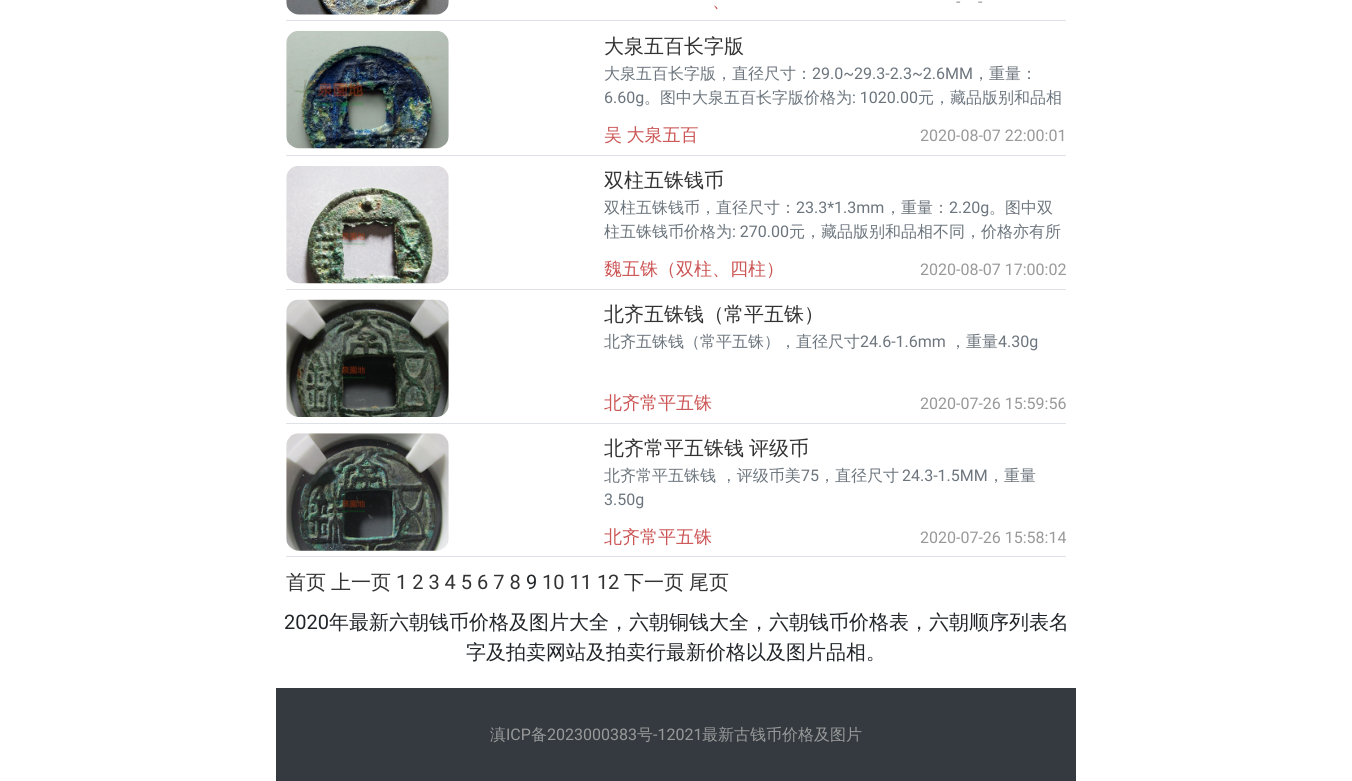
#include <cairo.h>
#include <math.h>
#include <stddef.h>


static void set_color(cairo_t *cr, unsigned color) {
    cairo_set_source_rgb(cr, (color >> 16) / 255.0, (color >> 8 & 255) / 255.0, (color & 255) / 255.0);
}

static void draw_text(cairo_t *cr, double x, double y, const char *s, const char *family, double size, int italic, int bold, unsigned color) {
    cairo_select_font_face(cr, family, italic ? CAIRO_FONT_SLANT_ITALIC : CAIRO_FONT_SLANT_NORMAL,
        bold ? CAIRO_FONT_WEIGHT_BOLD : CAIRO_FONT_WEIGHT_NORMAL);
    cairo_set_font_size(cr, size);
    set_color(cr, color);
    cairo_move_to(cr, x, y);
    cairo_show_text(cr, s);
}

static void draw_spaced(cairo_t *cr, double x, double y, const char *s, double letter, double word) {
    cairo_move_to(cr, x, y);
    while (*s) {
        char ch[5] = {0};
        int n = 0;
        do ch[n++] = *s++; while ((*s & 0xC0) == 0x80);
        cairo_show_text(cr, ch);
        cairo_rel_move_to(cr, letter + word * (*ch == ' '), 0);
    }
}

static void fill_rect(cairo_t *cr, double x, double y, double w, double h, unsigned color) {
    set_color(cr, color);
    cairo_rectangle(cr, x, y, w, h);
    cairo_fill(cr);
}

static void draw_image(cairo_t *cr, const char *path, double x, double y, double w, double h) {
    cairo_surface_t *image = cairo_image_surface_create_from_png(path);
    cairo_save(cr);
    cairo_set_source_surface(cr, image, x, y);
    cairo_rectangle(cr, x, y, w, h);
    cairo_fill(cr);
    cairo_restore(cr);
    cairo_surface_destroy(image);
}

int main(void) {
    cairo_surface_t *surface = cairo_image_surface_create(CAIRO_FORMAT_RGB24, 1352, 781);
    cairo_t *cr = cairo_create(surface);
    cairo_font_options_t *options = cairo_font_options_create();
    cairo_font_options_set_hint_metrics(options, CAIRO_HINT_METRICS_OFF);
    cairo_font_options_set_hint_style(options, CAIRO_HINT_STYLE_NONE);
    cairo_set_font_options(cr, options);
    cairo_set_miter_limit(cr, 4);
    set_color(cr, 0xFFFFFF);
    cairo_paint(cr);
    fill_rect(cr, 286, 20, 780, 1, 0xDEE2E6);
    draw_image(cr, "assets/img1.png", 286, 0, 163, 15);
    draw_text(cr, 956, 7, "-", "Roboto", 16, 0, 0, 0x999999);
    draw_text(cr, 978, 7, "-", "Roboto", 16, 0, 0, 0x999999);
    draw_text(cr, 712, 7, "、", "WenQuanYi Zen Hei Medium", 18, 0, 0, 0xCC5555);
    fill_rect(cr, 286, 155, 780, 1, 0xDEE2E6);
    draw_image(cr, "assets/img2.png", 286, 30, 163, 119);
    draw_text(cr, 604, 53, "大泉五百长字版", "WenQuanYi Zen Hei Medium", 20, 0, 0, 0x333333);
    draw_text(cr, 604, 79, "大泉五百长字版，直径尺寸：", "WenQuanYi Zen Hei Medium", 16, 0, 0, 0x6C757D);
    draw_text(cr, 812, 79, "29.0~29.3-2.3~2.6MM", "Roboto", 16, 0, 0, 0x6C757D);
    draw_text(cr, 973, 79, "，重量：", "WenQuanYi Zen Hei Medium", 16, 0, 0, 0x6C757D);
    draw_text(cr, 604, 103, "6.60g", "Roboto", 16, 0, 0, 0x6C757D);
    draw_text(cr, 644, 103, "。图中大泉五百长字版价格为", "WenQuanYi Zen Hei Medium", 16, 0, 0, 0x6C757D);
    draw_text(cr, 852, 103, ": 1020.00", "Roboto", 16, 0, 0, 0x6C757D);
    draw_text(cr, 918, 103, "元，藏品版别和品相", "WenQuanYi Zen Hei Medium", 16, 0, 0, 0x6C757D);
    cairo_set_font_size(cr, 18);
    set_color(cr, 0xCC5555);
    draw_spaced(cr, 604, 141, "吴 大泉五百", 0, -1);
    draw_text(cr, 920, 141, "2020-08-07 22:00:01", "Roboto", 16, 0, 0, 0x999999);
    fill_rect(cr, 286, 289, 780, 1, 0xDEE2E6);
    draw_image(cr, "assets/img3.png", 286, 166, 163, 118);
    draw_text(cr, 604, 187, "双柱五铢钱币", "WenQuanYi Zen Hei Medium", 20, 0, 0, 0x333333);
    draw_text(cr, 604, 213, "双柱五铢钱币，直径尺寸：", "WenQuanYi Zen Hei Medium", 16, 0, 0, 0x6C757D);
    draw_text(cr, 796, 213, "23.3*1.3mm", "Roboto", 16, 0, 0, 0x6C757D);
    draw_text(cr, 885, 213, "，重量：", "WenQuanYi Zen Hei Medium", 16, 0, 0, 0x6C757D);
    draw_text(cr, 949, 213, "2.20g", "Roboto", 16, 0, 0, 0x6C757D);
    draw_text(cr, 989, 213, "。图中双", "WenQuanYi Zen Hei Medium", 16, 0, 0, 0x6C757D);
    draw_text(cr, 604, 237, "柱五铢钱币价格为", "WenQuanYi Zen Hei Medium", 16, 0, 0, 0x6C757D);
    draw_text(cr, 732, 237, ": 270.00", "Roboto", 16, 0, 0, 0x6C757D);
    draw_text(cr, 789, 237, "元，藏品版别和品相不同，价格亦有所", "WenQuanYi Zen Hei Medium", 16, 0, 0, 0x6C757D);
    draw_text(cr, 604, 275, "魏五铢（双柱、四柱）", "WenQuanYi Zen Hei Medium", 18, 0, 0, 0xCC5555);
    draw_text(cr, 920, 275, "2020-08-07 17:00:02", "Roboto", 16, 0, 0, 0x999999);
    fill_rect(cr, 286, 423, 780, 1, 0xDEE2E6);
    draw_image(cr, "assets/img4.png", 286, 299, 163, 118);
    draw_text(cr, 604, 321, "北齐五铢钱（常平五铢）", "WenQuanYi Zen Hei Medium", 20, 0, 0, 0x333333);
    draw_text(cr, 604, 347, "北齐五铢钱（常平五铢），直径尺寸", "WenQuanYi Zen Hei Medium", 16, 0, 0, 0x6C757D);
    draw_text(cr, 860, 347, "24.6-1.6mm", "Roboto", 16, 0, 0, 0x6C757D);
    draw_text(cr, 950, 347, "，重量", "WenQuanYi Zen Hei Medium", 16, 0, 0, 0x6C757D);
    draw_text(cr, 998, 347, "4.30g", "Roboto", 16, 0, 0, 0x6C757D);
    draw_text(cr, 604, 409, "北齐常平五铢", "WenQuanYi Zen Hei Medium", 18, 0, 0, 0xCC5555);
    draw_text(cr, 920, 409, "2020-07-26 15:59:56", "Roboto", 16, 0, 0, 0x999999);
    fill_rect(cr, 286, 556, 780, 1, 0xDEE2E6);
    draw_image(cr, "assets/img5.png", 286, 433, 163, 118);
    cairo_select_font_face(cr, "WenQuanYi Zen Hei Medium", CAIRO_FONT_SLANT_NORMAL, CAIRO_FONT_WEIGHT_NORMAL);
    cairo_set_font_size(cr, 20);
    set_color(cr, 0x333333);
    draw_spaced(cr, 604, 455, "北齐常平五铢钱 评级币", 0, -1);
    draw_text(cr, 604, 481, "北齐常平五铢钱 ，评级币美", "WenQuanYi Zen Hei Medium", 16, 0, 0, 0x6C757D);
    draw_text(cr, 801, 481, "75", "Roboto", 16, 0, 0, 0x6C757D);
    draw_text(cr, 819, 481, "，直径尺寸", "WenQuanYi Zen Hei Medium", 16, 0, 0, 0x6C757D);
    draw_text(cr, 902, 481, "24.3-1.5MM", "Roboto", 16, 0, 0, 0x6C757D);
    draw_text(cr, 988, 481, "，重量", "WenQuanYi Zen Hei Medium", 16, 0, 0, 0x6C757D);
    draw_text(cr, 604, 505, "3.50g", "Roboto", 16, 0, 0, 0x6C757D);
    draw_text(cr, 604, 543, "北齐常平五铢", "WenQuanYi Zen Hei Medium", 18, 0, 0, 0xCC5555);
    draw_text(cr, 920, 543, "2020-07-26 15:58:14", "Roboto", 16, 0, 0, 0x999999);
    draw_text(cr, 286, 589, "首页", "WenQuanYi Zen Hei Medium", 20, 0, 0, 0x333333);
    draw_text(cr, 331, 589, "上一页", "WenQuanYi Zen Hei Medium", 20, 0, 0, 0x333333);
    draw_text(cr, 396, 589, "1 2 3 4 5 6 7 8", "Roboto", 20, 0, 0, 0x333333);
    draw_text(cr, 526, 589, "9", "Roboto", 20, 0, 0, 0x212529);
    draw_text(cr, 542, 589, "10 11 12", "Roboto", 20, 0, 0, 0x333333);
    draw_text(cr, 624, 589, "下一页", "WenQuanYi Zen Hei Medium", 20, 0, 0, 0x333333);
    draw_text(cr, 689, 589, "尾页", "WenQuanYi Zen Hei Medium", 20, 0, 0, 0x333333);
    draw_text(cr, 284, 629, "2020", "Roboto", 20, 0, 0, 0x212529);
    draw_text(cr, 329, 629, "年最新六朝钱币价格及图片大全，六朝铜钱大全，六朝钱币价格表，六朝顺序列表名", "WenQuanYi Zen Hei Medium", 20, 0, 0, 0x212529);
    draw_text(cr, 466, 659, "字及拍卖网站及拍卖行最新价格以及图片品相。", "WenQuanYi Zen Hei Medium", 20, 0, 0, 0x212529);
    fill_rect(cr, 276, 688, 800, 93, 0x343A40);
    draw_text(cr, 490, 740, "滇", "WenQuanYi Zen Hei Medium", 16, 0, 0, 0x999999);
    draw_text(cr, 506, 740, "ICP", "Roboto", 16, 0, 0, 0x999999);
    draw_text(cr, 531, 740, "备", "WenQuanYi Zen Hei Medium", 16, 0, 0, 0x999999);
    draw_text(cr, 547, 740, "2023000383", "Roboto", 16, 0, 0, 0x999999);
    draw_text(cr, 637, 740, "号", "WenQuanYi Zen Hei Medium", 16, 0, 0, 0x999999);
    draw_text(cr, 653, 740, "-12021", "Roboto", 16, 0, 0, 0x999999);
    draw_text(cr, 702, 740, "最新古钱币价格及图片", "WenQuanYi Zen Hei Medium", 16, 0, 0, 0x999999);
    cairo_surface_write_to_png(surface, "output.png");
    cairo_font_options_destroy(options);
    cairo_destroy(cr);
    cairo_surface_destroy(surface);
    return 0;
}
